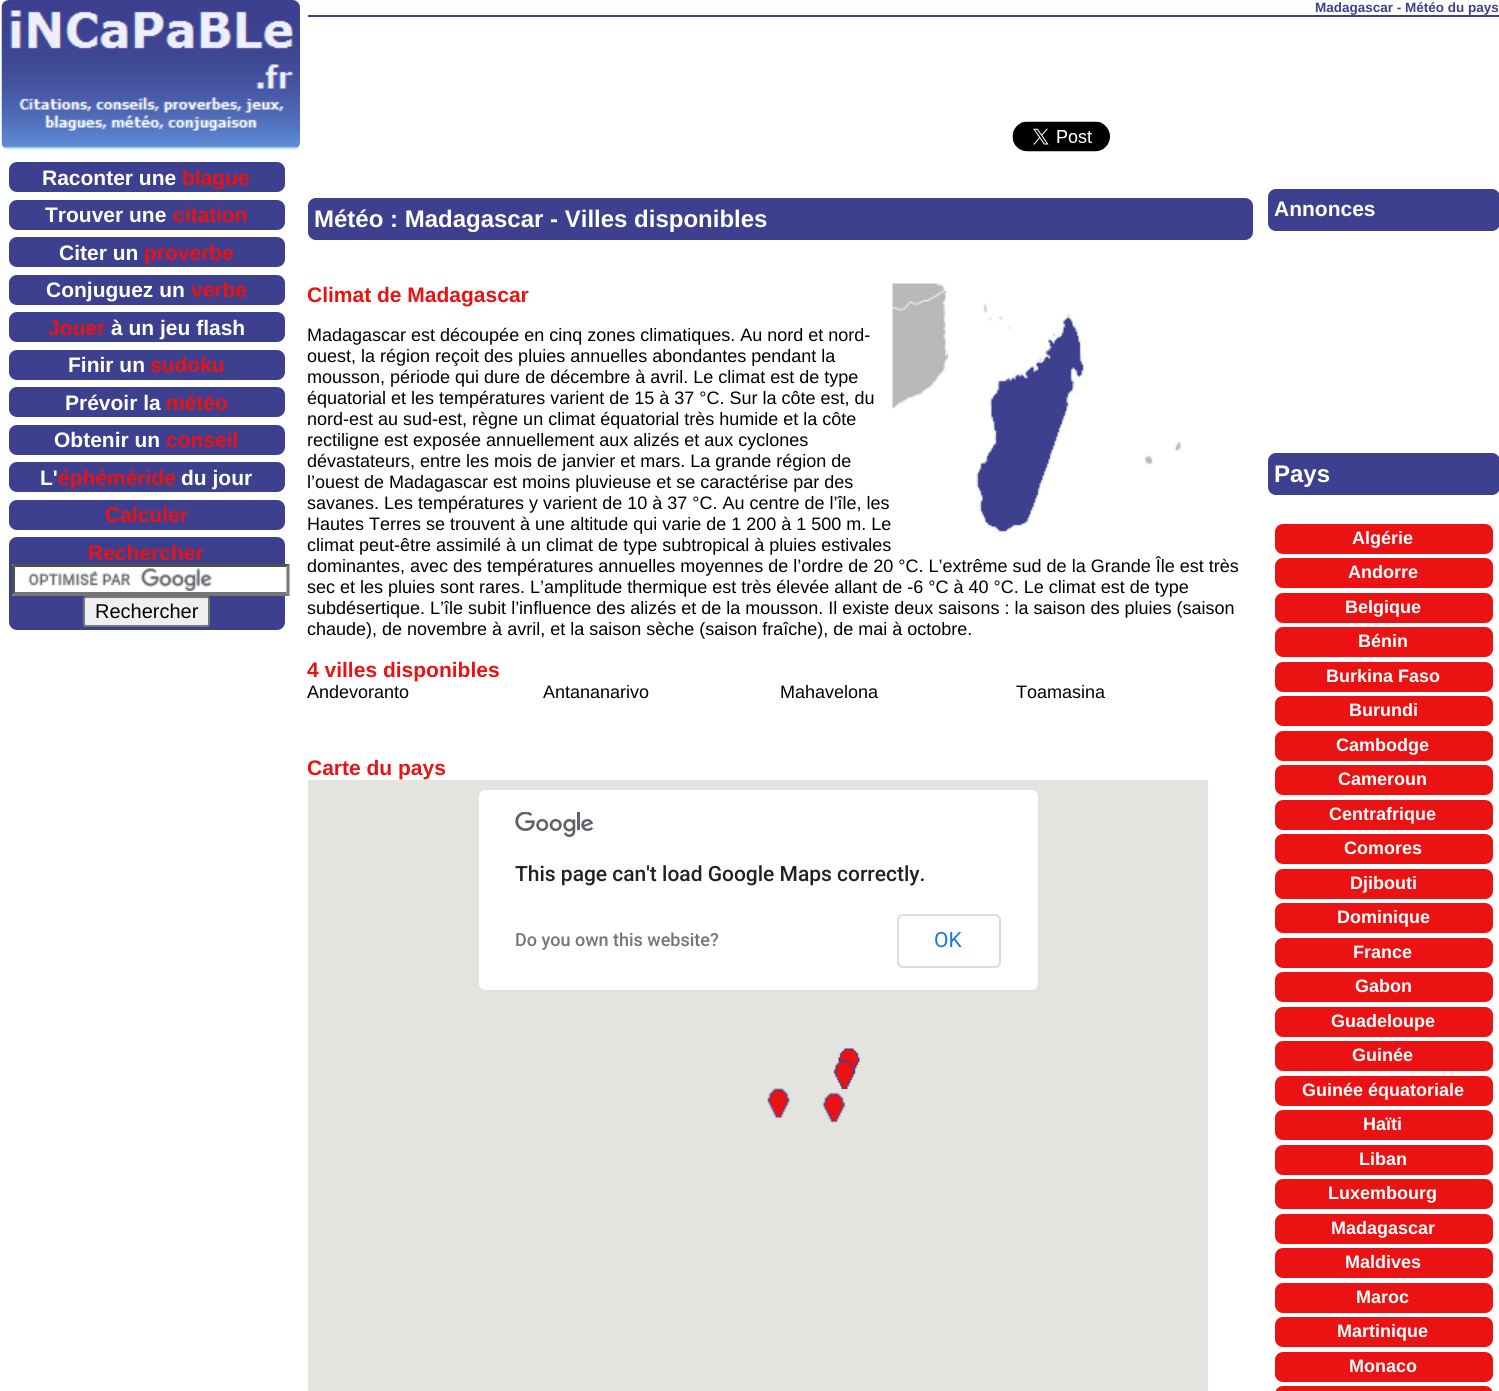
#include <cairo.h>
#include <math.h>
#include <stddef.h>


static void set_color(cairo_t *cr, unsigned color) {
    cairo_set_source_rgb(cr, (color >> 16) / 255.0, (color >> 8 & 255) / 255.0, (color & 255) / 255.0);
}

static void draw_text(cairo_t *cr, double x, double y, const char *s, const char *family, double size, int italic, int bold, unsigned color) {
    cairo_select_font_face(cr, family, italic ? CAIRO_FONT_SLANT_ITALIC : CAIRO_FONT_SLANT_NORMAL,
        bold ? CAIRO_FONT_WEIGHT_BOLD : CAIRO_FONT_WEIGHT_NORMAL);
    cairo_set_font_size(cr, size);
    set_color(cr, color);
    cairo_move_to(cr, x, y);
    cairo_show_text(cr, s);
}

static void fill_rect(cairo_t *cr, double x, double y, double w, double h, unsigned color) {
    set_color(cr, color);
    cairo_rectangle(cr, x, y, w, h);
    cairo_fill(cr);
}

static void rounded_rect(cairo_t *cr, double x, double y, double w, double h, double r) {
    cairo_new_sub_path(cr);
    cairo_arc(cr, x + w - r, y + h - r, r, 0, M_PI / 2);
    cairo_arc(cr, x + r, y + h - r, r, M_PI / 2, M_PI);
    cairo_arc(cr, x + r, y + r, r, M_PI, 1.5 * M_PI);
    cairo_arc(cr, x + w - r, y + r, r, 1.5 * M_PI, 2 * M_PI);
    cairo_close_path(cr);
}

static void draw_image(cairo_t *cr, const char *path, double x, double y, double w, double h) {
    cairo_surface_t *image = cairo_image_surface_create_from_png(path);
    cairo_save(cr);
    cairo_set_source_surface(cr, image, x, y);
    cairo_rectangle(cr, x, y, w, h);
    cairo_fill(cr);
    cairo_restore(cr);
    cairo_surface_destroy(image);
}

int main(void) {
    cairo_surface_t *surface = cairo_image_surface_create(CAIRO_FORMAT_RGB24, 1499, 1391);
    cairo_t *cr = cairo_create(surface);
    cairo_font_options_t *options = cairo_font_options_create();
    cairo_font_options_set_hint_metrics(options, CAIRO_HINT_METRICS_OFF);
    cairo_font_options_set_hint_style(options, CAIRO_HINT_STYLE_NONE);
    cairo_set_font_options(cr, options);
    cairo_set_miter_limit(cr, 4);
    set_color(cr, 0xFFFFFF);
    cairo_paint(cr);
    draw_image(cr, "assets/img1.png", 1, 0, 299, 150);
    set_color(cr, 0x3C408E);
    rounded_rect(cr, 9, 162, 276, 30, 8);
    cairo_fill(cr);
    draw_text(cr, 42, 185, "Raconter une", "Liberation Sans", 21, 0, 1, 0xFFFFFF);
    draw_text(cr, 182, 185, "blague", "Liberation Sans", 21, 0, 1, 0xEA1212);
    set_color(cr, 0x3C408E);
    rounded_rect(cr, 9, 200, 276, 30, 8);
    cairo_fill(cr);
    draw_text(cr, 45, 222, "Trouver une", "Liberation Sans", 21, 0, 1, 0xFFFFFF);
    draw_text(cr, 173, 222, "citation", "Liberation Sans", 21, 0, 1, 0xEA1212);
    set_color(cr, 0x3C408E);
    rounded_rect(cr, 9, 237, 276, 30, 8);
    cairo_fill(cr);
    draw_text(cr, 59, 260, "Citer un", "Liberation Sans", 21, 0, 1, 0xFFFFFF);
    draw_text(cr, 144, 260, "proverbe", "Liberation Sans", 21, 0, 1, 0xEA1212);
    set_color(cr, 0x3C408E);
    rounded_rect(cr, 9, 275, 276, 30, 8);
    cairo_fill(cr);
    draw_text(cr, 46, 297, "Conjuguez un", "Liberation Sans", 21, 0, 1, 0xFFFFFF);
    draw_text(cr, 191, 297, "verbe", "Liberation Sans", 21, 0, 1, 0xEA1212);
    set_color(cr, 0x3C408E);
    rounded_rect(cr, 9, 312, 276, 30, 8);
    cairo_fill(cr);
    draw_text(cr, 48, 335, "Jouer", "Liberation Sans", 21, 0, 1, 0xEA1212);
    draw_text(cr, 111, 335, "à un jeu flash", "Liberation Sans", 21, 0, 1, 0xFFFFFF);
    set_color(cr, 0x3C408E);
    rounded_rect(cr, 9, 350, 276, 30, 8);
    cairo_fill(cr);
    draw_text(cr, 68, 372, "Finir un", "Liberation Sans", 21, 0, 1, 0xFFFFFF);
    draw_text(cr, 150, 372, "sudoku", "Liberation Sans", 21, 0, 1, 0xEA1212);
    set_color(cr, 0x3C408E);
    rounded_rect(cr, 9, 387, 276, 30, 8);
    cairo_fill(cr);
    draw_text(cr, 65, 410, "Prévoir la", "Liberation Sans", 21, 0, 1, 0xFFFFFF);
    draw_text(cr, 166, 410, "météo", "Liberation Sans", 21, 0, 1, 0xEA1212);
    set_color(cr, 0x3C408E);
    rounded_rect(cr, 9, 425, 276, 30, 8);
    cairo_fill(cr);
    draw_text(cr, 54, 447, "Obtenir un", "Liberation Sans", 21, 0, 1, 0xFFFFFF);
    draw_text(cr, 166, 447, "conseil", "Liberation Sans", 21, 0, 1, 0xEA1212);
    set_color(cr, 0x3C408E);
    rounded_rect(cr, 9, 462, 276, 30, 8);
    cairo_fill(cr);
    draw_text(cr, 40, 485, "L'", "Liberation Sans", 21, 0, 1, 0xFFFFFF);
    draw_text(cr, 58, 485, "éphéméride", "Liberation Sans", 21, 0, 1, 0xEA1212);
    draw_text(cr, 181, 485, "du jour", "Liberation Sans", 21, 0, 1, 0xFFFFFF);
    set_color(cr, 0x3C408E);
    rounded_rect(cr, 9, 500, 276, 30, 8);
    cairo_fill(cr);
    draw_text(cr, 105, 522, "Calculer", "Liberation Sans", 21, 0, 1, 0xEA1212);
    set_color(cr, 0x3C408E);
    rounded_rect(cr, 9, 537, 276, 93, 8);
    cairo_fill(cr);
    draw_text(cr, 88, 560, "Rechercher", "Liberation Sans", 21, 0, 1, 0xEA1212);
    fill_rect(cr, 12, 564, 273, 32, 0xFFFFFF);
    draw_image(cr, "assets/img2.png", 28, 568, 184, 23);
    set_color(cr, 0x4F4F4F);
    cairo_new_path(cr);
    cairo_move_to(cr, 12, 564);
    cairo_line_to(cr, 290, 564);
    cairo_line_to(cr, 286, 567);
    cairo_line_to(cr, 15, 567);
    cairo_close_path(cr);
    cairo_fill(cr);
    set_color(cr, 0x767676);
    cairo_new_path(cr);
    cairo_move_to(cr, 289.5, 564);
    cairo_line_to(cr, 289.5, 595.5);
    cairo_line_to(cr, 286.5, 592.5);
    cairo_line_to(cr, 286.5, 567);
    cairo_close_path(cr);
    cairo_fill(cr);
    cairo_new_path(cr);
    cairo_move_to(cr, 290, 596);
    cairo_line_to(cr, 12, 596);
    cairo_line_to(cr, 15, 592);
    cairo_line_to(cr, 286, 592);
    cairo_close_path(cr);
    cairo_fill(cr);
    set_color(cr, 0x4F4F4F);
    cairo_new_path(cr);
    cairo_move_to(cr, 12, 595.5);
    cairo_line_to(cr, 12, 564);
    cairo_line_to(cr, 15, 567);
    cairo_line_to(cr, 15, 592.5);
    cairo_close_path(cr);
    cairo_fill(cr);
    set_color(cr, 0xEFEFEF);
    rounded_rect(cr, 84, 597, 125, 29, 2);
    cairo_fill_preserve(cr);
    set_color(cr, 0x767676);
    cairo_stroke(cr);
    draw_text(cr, 95, 618, "Rechercher", "Liberation Sans", 20, 0, 0, 0x000000);
    fill_rect(cr, 308, 15, 1191, 2, 0x3C408E);
    draw_text(cr, 1315, 12, "Madagascar - Météo du pays", "Liberation Sans", 13.5, 0, 1, 0x3C408E);
    draw_image(cr, "assets/img3.png", 1012, 121, 98, 31);
    rounded_rect(cr, 308, 198, 945, 42, 8);
    cairo_fill(cr);
    draw_text(cr, 314, 227, "Météo : Madagascar - Villes disponibles", "Liberation Sans", 24, 0, 1, 0xFFFFFF);
    draw_text(cr, 307, 302, "Climat de Madagascar", "Liberation Sans", 21, 0, 1, 0xEA1212);
    draw_image(cr, "assets/img4.png", 892, 283, 289, 250);
    draw_text(cr, 307, 341, "Madagascar est découpée en cinq zones climatiques. Au nord et nord-", "Liberation Sans", 18, 0, 0, 0x000000);
    draw_text(cr, 307, 362, "ouest, la région reçoit des pluies annuelles abondantes pendant la", "Liberation Sans", 18, 0, 0, 0x000000);
    draw_text(cr, 307, 383, "mousson, période qui dure de décembre à avril. Le climat est de type", "Liberation Sans", 18, 0, 0, 0x000000);
    draw_text(cr, 307, 404, "équatorial et les températures varient de 15 à 37 °C. Sur la côte est, du", "Liberation Sans", 18, 0, 0, 0x000000);
    draw_text(cr, 307, 425, "nord-est au sud-est, règne un climat équatorial très humide et la côte", "Liberation Sans", 18, 0, 0, 0x000000);
    draw_text(cr, 307, 446, "rectiligne est exposée annuellement aux alizés et aux cyclones", "Liberation Sans", 18, 0, 0, 0x000000);
    draw_text(cr, 307, 467, "dévastateurs, entre les mois de janvier et mars. La grande région de", "Liberation Sans", 18, 0, 0, 0x000000);
    draw_text(cr, 307, 488, "l’ouest de Madagascar est moins pluvieuse et se caractérise par des", "Liberation Sans", 18, 0, 0, 0x000000);
    draw_text(cr, 307, 509, "savanes. Les températures y varient de 10 à 37 °C. Au centre de l’île, les", "Liberation Sans", 18, 0, 0, 0x000000);
    draw_text(cr, 307, 530, "Hautes Terres se trouvent à une altitude qui varie de 1 200 à 1 500 m. Le", "Liberation Sans", 18, 0, 0, 0x000000);
    draw_text(cr, 307, 551, "climat peut-être assimilé à un climat de type subtropical à pluies estivales", "Liberation Sans", 18, 0, 0, 0x000000);
    draw_text(cr, 307, 572, "dominantes, avec des températures annuelles moyennes de l’ordre de 20 °C. L’extrême sud de la Grande Île est très", "Liberation Sans", 18, 0, 0, 0x000000);
    draw_text(cr, 307, 593, "sec et les pluies sont rares. L’amplitude thermique est très élevée allant de -6 °C à 40 °C. Le climat est de type", "Liberation Sans", 18, 0, 0, 0x000000);
    draw_text(cr, 307, 614, "subdésertique. L’île subit l’influence des alizés et de la mousson. Il existe deux saisons : la saison des pluies (saison", "Liberation Sans", 18, 0, 0, 0x000000);
    draw_text(cr, 307, 635, "chaude), de novembre à avril, et la saison sèche (saison fraîche), de mai à octobre.", "Liberation Sans", 18, 0, 0, 0x000000);
    draw_text(cr, 307, 677, "4 villes disponibles", "Liberation Sans", 21, 0, 1, 0xEA1212);
    draw_text(cr, 307, 698, "Andevoranto", "Liberation Sans", 18, 0, 0, 0x000000);
    draw_text(cr, 543, 698, "Antananarivo", "Liberation Sans", 18, 0, 0, 0x000000);
    draw_text(cr, 780, 698, "Mahavelona", "Liberation Sans", 18, 0, 0, 0x000000);
    draw_text(cr, 1016, 698, "Toamasina", "Liberation Sans", 18, 0, 0, 0x000000);
    draw_text(cr, 307, 775, "Carte du pays", "Liberation Sans", 21, 0, 1, 0xEA1212);
    fill_rect(cr, 308, 780, 900, 611, 0xE5E3DF);
    draw_image(cr, "assets/img5.png", 838, 1048, 22, 29);
    draw_image(cr, "assets/img6.png", 833, 1060, 23, 29);
    draw_image(cr, "assets/img7.png", 767, 1088, 23, 30);
    draw_image(cr, "assets/img8.png", 822, 1092, 24, 31);
    set_color(cr, 0xFFFFFF);
    rounded_rect(cr, 477, 788, 563, 204, 8);
    cairo_fill(cr);
    rounded_rect(cr, 478, 789, 561, 202, 7);
    cairo_set_source_rgba(cr, 0, 0, 0, 0.12);
    cairo_stroke(cr);
    draw_image(cr, "assets/img9.png", 515, 812, 78, 25);
    draw_text(cr, 515, 881, "This page can't load Google Maps correctly.", "Roboto Medium", 21, 0, 0, 0x212121);
    draw_text(cr, 515, 946, "Do you own this website?", "Roboto Medium", 18, 0, 0, 0x757575);
    rounded_rect(cr, 898, 915, 102, 52, 5);
    set_color(cr, 0xDADCE0);
    cairo_stroke(cr);
    draw_text(cr, 934, 947, "OK", "Roboto", 21, 0, 0, 0x1A73E8);
    set_color(cr, 0x3C408E);
    rounded_rect(cr, 1268, 189, 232, 42, 8);
    cairo_fill(cr);
    draw_text(cr, 1274, 216, "Annonces", "Liberation Sans", 21, 0, 1, 0xFFFFFF);
    set_color(cr, 0x3C408E);
    rounded_rect(cr, 1268, 453, 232, 42, 8);
    cairo_fill(cr);
    draw_text(cr, 1274, 482, "Pays", "Liberation Sans", 24, 0, 1, 0xFFFFFF);
    set_color(cr, 0xEA1212);
    rounded_rect(cr, 1275, 524, 218, 30, 8);
    cairo_fill(cr);
    draw_text(cr, 1352, 544, "Algérie", "Liberation Sans", 18, 0, 1, 0xFFFFFF);
    set_color(cr, 0xEA1212);
    rounded_rect(cr, 1275, 558, 218, 30, 8);
    cairo_fill(cr);
    draw_text(cr, 1348, 578, "Andorre", "Liberation Sans", 18, 0, 1, 0xFFFFFF);
    set_color(cr, 0xEA1212);
    rounded_rect(cr, 1275, 593, 218, 30, 8);
    cairo_fill(cr);
    draw_text(cr, 1345, 613, "Belgique", "Liberation Sans", 18, 0, 1, 0xFFFFFF);
    set_color(cr, 0xEA1212);
    rounded_rect(cr, 1275, 627, 218, 30, 8);
    cairo_fill(cr);
    draw_text(cr, 1358, 647, "Bénin", "Liberation Sans", 18, 0, 1, 0xFFFFFF);
    set_color(cr, 0xEA1212);
    rounded_rect(cr, 1275, 662, 218, 30, 8);
    cairo_fill(cr);
    draw_text(cr, 1326, 682, "Burkina Faso", "Liberation Sans", 18, 0, 1, 0xFFFFFF);
    set_color(cr, 0xEA1212);
    rounded_rect(cr, 1275, 696, 218, 30, 8);
    cairo_fill(cr);
    draw_text(cr, 1349, 716, "Burundi", "Liberation Sans", 18, 0, 1, 0xFFFFFF);
    set_color(cr, 0xEA1212);
    rounded_rect(cr, 1275, 731, 218, 30, 8);
    cairo_fill(cr);
    draw_text(cr, 1336, 751, "Cambodge", "Liberation Sans", 18, 0, 1, 0xFFFFFF);
    set_color(cr, 0xEA1212);
    rounded_rect(cr, 1275, 765, 218, 30, 8);
    cairo_fill(cr);
    draw_text(cr, 1338, 785, "Cameroun", "Liberation Sans", 18, 0, 1, 0xFFFFFF);
    set_color(cr, 0xEA1212);
    rounded_rect(cr, 1275, 800, 218, 30, 8);
    cairo_fill(cr);
    draw_text(cr, 1329, 820, "Centrafrique", "Liberation Sans", 18, 0, 1, 0xFFFFFF);
    set_color(cr, 0xEA1212);
    rounded_rect(cr, 1275, 834, 218, 30, 8);
    cairo_fill(cr);
    draw_text(cr, 1344, 854, "Comores", "Liberation Sans", 18, 0, 1, 0xFFFFFF);
    set_color(cr, 0xEA1212);
    rounded_rect(cr, 1275, 869, 218, 30, 8);
    cairo_fill(cr);
    draw_text(cr, 1350, 889, "Djibouti", "Liberation Sans", 18, 0, 1, 0xFFFFFF);
    set_color(cr, 0xEA1212);
    rounded_rect(cr, 1275, 903, 218, 30, 8);
    cairo_fill(cr);
    draw_text(cr, 1337, 923, "Dominique", "Liberation Sans", 18, 0, 1, 0xFFFFFF);
    set_color(cr, 0xEA1212);
    rounded_rect(cr, 1275, 938, 218, 30, 8);
    cairo_fill(cr);
    draw_text(cr, 1353, 958, "France", "Liberation Sans", 18, 0, 1, 0xFFFFFF);
    set_color(cr, 0xEA1212);
    rounded_rect(cr, 1275, 972, 218, 30, 8);
    cairo_fill(cr);
    draw_text(cr, 1355, 992, "Gabon", "Liberation Sans", 18, 0, 1, 0xFFFFFF);
    set_color(cr, 0xEA1212);
    rounded_rect(cr, 1275, 1007, 218, 30, 8);
    cairo_fill(cr);
    draw_text(cr, 1331, 1027, "Guadeloupe", "Liberation Sans", 18, 0, 1, 0xFFFFFF);
    set_color(cr, 0xEA1212);
    rounded_rect(cr, 1275, 1041, 218, 30, 8);
    cairo_fill(cr);
    draw_text(cr, 1352, 1061, "Guinée", "Liberation Sans", 18, 0, 1, 0xFFFFFF);
    set_color(cr, 0xEA1212);
    rounded_rect(cr, 1275, 1076, 218, 30, 8);
    cairo_fill(cr);
    draw_text(cr, 1302, 1096, "Guinée équatoriale", "Liberation Sans", 18, 0, 1, 0xFFFFFF);
    set_color(cr, 0xEA1212);
    rounded_rect(cr, 1275, 1110, 218, 30, 8);
    cairo_fill(cr);
    draw_text(cr, 1363, 1130, "Haïti", "Liberation Sans", 18, 0, 1, 0xFFFFFF);
    set_color(cr, 0xEA1212);
    rounded_rect(cr, 1275, 1145, 218, 30, 8);
    cairo_fill(cr);
    draw_text(cr, 1359, 1165, "Liban", "Liberation Sans", 18, 0, 1, 0xFFFFFF);
    set_color(cr, 0xEA1212);
    rounded_rect(cr, 1275, 1179, 218, 30, 8);
    cairo_fill(cr);
    draw_text(cr, 1328, 1199, "Luxembourg", "Liberation Sans", 18, 0, 1, 0xFFFFFF);
    set_color(cr, 0xEA1212);
    rounded_rect(cr, 1275, 1214, 218, 30, 8);
    cairo_fill(cr);
    draw_text(cr, 1331, 1234, "Madagascar", "Liberation Sans", 18, 0, 1, 0xFFFFFF);
    set_color(cr, 0xEA1212);
    rounded_rect(cr, 1275, 1248, 218, 30, 8);
    cairo_fill(cr);
    draw_text(cr, 1345, 1268, "Maldives", "Liberation Sans", 18, 0, 1, 0xFFFFFF);
    set_color(cr, 0xEA1212);
    rounded_rect(cr, 1275, 1283, 218, 30, 8);
    cairo_fill(cr);
    draw_text(cr, 1356, 1303, "Maroc", "Liberation Sans", 18, 0, 1, 0xFFFFFF);
    set_color(cr, 0xEA1212);
    rounded_rect(cr, 1275, 1317, 218, 30, 8);
    cairo_fill(cr);
    draw_text(cr, 1337, 1337, "Martinique", "Liberation Sans", 18, 0, 1, 0xFFFFFF);
    set_color(cr, 0xEA1212);
    rounded_rect(cr, 1275, 1352, 218, 30, 8);
    cairo_fill(cr);
    draw_text(cr, 1349, 1372, "Monaco", "Liberation Sans", 18, 0, 1, 0xFFFFFF);
    set_color(cr, 0xEA1212);
    rounded_rect(cr, 1275, 1386, 218, 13, 8);
    cairo_fill(cr);
    cairo_surface_write_to_png(surface, "output.png");
    cairo_font_options_destroy(options);
    cairo_destroy(cr);
    cairo_surface_destroy(surface);
    return 0;
}
